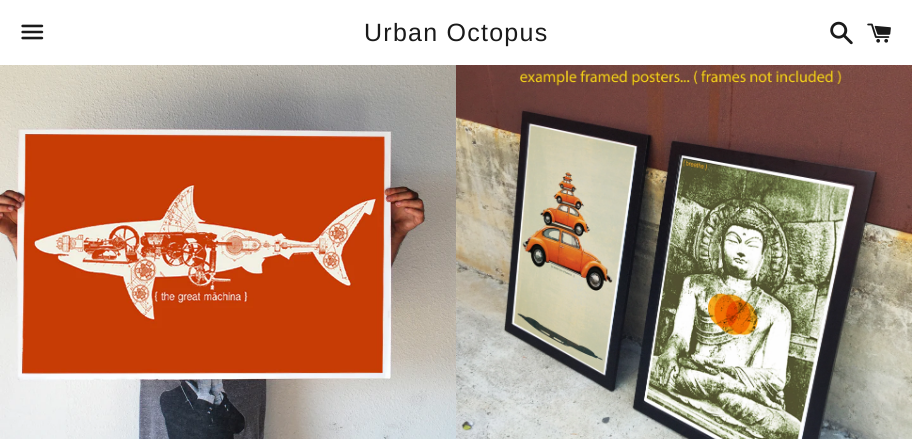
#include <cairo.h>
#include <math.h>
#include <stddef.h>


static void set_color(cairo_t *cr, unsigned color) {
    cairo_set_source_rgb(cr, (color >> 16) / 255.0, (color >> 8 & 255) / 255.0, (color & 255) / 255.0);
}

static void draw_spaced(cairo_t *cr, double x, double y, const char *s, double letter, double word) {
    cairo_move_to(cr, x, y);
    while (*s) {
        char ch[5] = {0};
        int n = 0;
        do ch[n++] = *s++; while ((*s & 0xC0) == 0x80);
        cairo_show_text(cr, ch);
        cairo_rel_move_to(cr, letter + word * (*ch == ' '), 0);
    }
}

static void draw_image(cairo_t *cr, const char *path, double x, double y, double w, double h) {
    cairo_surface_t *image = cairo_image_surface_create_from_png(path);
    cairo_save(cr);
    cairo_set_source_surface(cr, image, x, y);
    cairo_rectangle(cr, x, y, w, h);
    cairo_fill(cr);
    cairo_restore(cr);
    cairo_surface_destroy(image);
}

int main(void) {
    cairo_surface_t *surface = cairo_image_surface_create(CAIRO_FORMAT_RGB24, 912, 439);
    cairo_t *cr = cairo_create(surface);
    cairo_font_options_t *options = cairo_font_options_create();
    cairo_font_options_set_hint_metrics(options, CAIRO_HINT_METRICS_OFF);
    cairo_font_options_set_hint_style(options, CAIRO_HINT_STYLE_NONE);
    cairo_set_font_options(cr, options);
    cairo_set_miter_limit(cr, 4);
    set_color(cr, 0xFFFFFF);
    cairo_paint(cr);
    draw_image(cr, "assets/img1.png", 21, 24, 23, 16);
    cairo_select_font_face(cr, "Liberation Sans", CAIRO_FONT_SLANT_NORMAL, CAIRO_FONT_WEIGHT_NORMAL);
    cairo_set_font_size(cr, 25);
    set_color(cr, 0x1A1A1A);
    draw_spaced(cr, 364, 41, "Urban Octopus", 1.25, 0);
    draw_image(cr, "assets/img2.png", 830, 21, 23, 24);
    draw_image(cr, "assets/img3.png", 867, 23, 24, 20);
    draw_image(cr, "assets/img4.png", 0, 65, 456, 374);
    draw_image(cr, "assets/img5.png", 456, 65, 456, 374);
    cairo_surface_write_to_png(surface, "output.png");
    cairo_font_options_destroy(options);
    cairo_destroy(cr);
    cairo_surface_destroy(surface);
    return 0;
}
